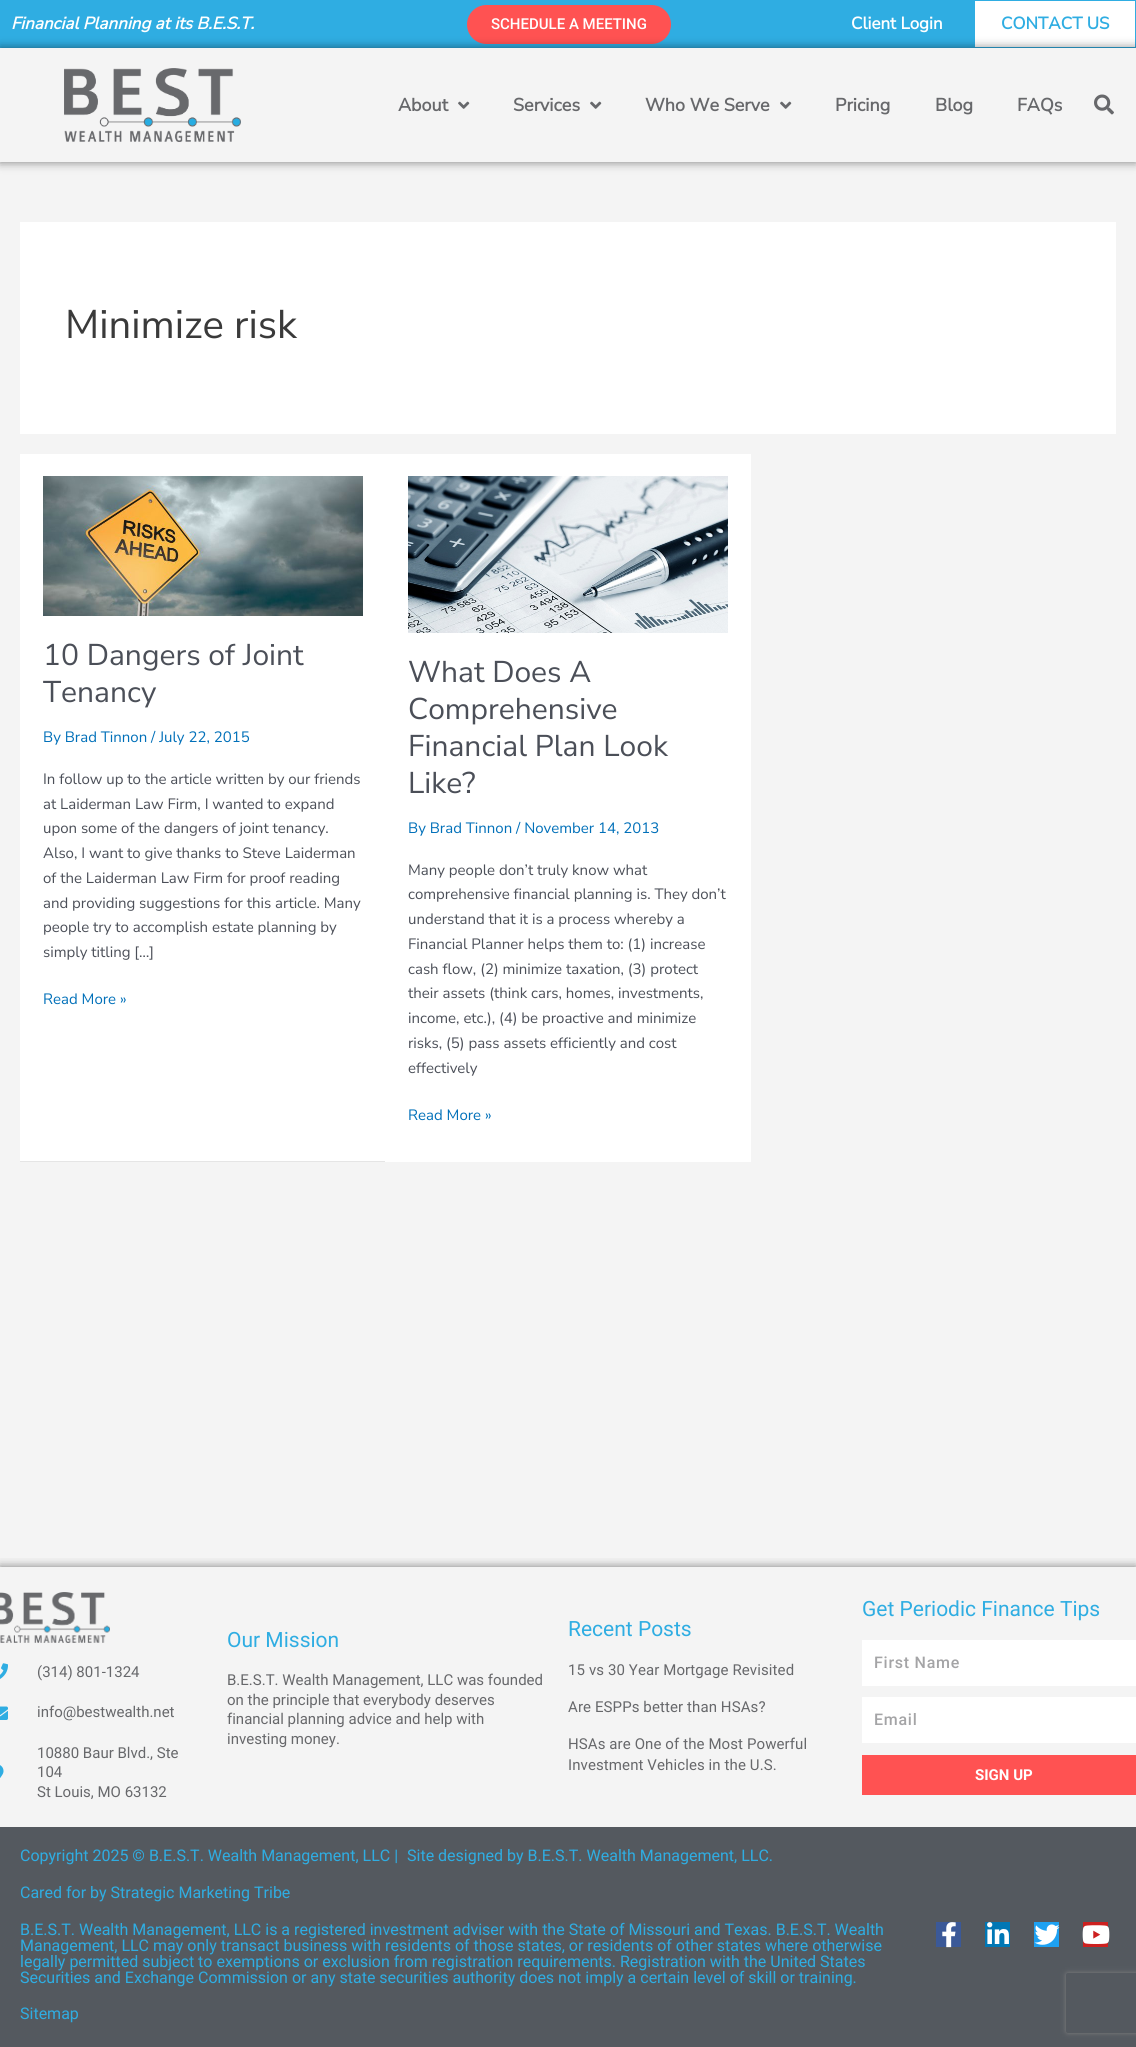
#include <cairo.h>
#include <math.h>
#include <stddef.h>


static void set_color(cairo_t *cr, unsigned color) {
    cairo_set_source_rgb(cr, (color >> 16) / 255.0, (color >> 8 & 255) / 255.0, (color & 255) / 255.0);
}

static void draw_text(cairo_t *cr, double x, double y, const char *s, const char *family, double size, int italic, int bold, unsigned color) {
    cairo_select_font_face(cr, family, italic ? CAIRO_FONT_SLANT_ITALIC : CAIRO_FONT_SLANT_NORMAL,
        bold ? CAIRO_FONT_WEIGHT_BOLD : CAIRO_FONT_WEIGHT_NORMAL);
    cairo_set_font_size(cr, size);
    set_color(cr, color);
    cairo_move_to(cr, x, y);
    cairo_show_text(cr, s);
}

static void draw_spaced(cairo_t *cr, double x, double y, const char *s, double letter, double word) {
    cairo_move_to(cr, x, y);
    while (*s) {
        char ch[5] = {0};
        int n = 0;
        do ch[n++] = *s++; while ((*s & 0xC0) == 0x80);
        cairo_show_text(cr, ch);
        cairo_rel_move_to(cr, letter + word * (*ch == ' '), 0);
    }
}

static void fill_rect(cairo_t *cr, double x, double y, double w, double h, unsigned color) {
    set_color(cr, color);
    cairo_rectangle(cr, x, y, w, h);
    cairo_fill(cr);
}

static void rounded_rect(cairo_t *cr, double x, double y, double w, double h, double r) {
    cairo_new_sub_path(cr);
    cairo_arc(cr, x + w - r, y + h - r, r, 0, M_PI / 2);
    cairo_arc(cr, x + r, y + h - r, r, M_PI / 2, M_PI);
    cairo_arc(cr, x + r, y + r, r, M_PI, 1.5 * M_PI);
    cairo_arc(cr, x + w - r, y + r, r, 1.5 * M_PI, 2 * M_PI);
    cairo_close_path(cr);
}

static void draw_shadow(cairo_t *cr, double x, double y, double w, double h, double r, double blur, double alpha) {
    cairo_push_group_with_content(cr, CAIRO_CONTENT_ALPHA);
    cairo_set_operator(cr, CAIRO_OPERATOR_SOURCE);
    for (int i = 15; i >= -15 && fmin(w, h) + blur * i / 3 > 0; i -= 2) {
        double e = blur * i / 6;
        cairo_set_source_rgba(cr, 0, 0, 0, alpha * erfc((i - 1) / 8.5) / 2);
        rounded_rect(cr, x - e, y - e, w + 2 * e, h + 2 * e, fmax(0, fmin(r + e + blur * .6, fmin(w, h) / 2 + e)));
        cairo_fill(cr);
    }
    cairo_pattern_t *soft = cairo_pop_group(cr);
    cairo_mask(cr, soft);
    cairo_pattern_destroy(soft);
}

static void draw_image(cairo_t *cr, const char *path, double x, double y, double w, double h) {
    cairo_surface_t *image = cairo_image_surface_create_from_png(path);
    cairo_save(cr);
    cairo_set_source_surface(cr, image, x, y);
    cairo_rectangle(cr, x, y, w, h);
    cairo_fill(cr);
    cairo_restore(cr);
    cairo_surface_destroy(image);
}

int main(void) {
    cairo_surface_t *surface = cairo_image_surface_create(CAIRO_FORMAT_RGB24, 1136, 2047);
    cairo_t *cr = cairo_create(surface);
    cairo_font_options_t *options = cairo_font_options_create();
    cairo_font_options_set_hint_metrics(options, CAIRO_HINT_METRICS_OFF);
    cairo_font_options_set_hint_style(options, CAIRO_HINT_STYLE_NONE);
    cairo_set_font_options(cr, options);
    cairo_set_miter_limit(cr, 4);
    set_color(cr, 0xF4F4F4);
    cairo_paint(cr);
    fill_rect(cr, 0, 0, 974, 48, 0x2FADE2);
    draw_text(cr, 11, 29, "Financial Planning at its B.E.S.T.", "Nunito Sans", 17, 1, 1, 0xFFFFFF);
    set_color(cr, 0xFF5252);
    rounded_rect(cr, 467, 5, 204, 39, 19.5);
    cairo_fill(cr);
    draw_text(cr, 491, 29, "SCHEDULE A MEETING", "Roboto Medium", 15, 0, 0, 0xFFFFFF);
    cairo_rectangle(cr, 974.5, 0.5, 161, 47);
    cairo_fill_preserve(cr);
    set_color(cr, 0x2FADE2);
    cairo_set_line_width(cr, 1);
    cairo_stroke(cr);
    cairo_save(cr);
    cairo_set_fill_rule(cr, CAIRO_FILL_RULE_EVEN_ODD);
    cairo_new_path(cr);
    cairo_move_to(cr, 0, 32);
    cairo_line_to(cr, 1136, 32);
    cairo_line_to(cr, 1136, 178);
    cairo_line_to(cr, 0, 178);
    cairo_close_path(cr);
    cairo_move_to(cr, 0, 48);
    cairo_line_to(cr, 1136, 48);
    cairo_line_to(cr, 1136, 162);
    cairo_line_to(cr, 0, 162);
    cairo_close_path(cr);
    cairo_clip(cr);
    set_color(cr, 0x000000);
    draw_shadow(cr, 0, 48, 1136, 114, 0, 5, 0.5);
    cairo_restore(cr);
    draw_text(cr, 851, 29, "Client Login", "Nunito Sans", 17, 0, 1, 0xFFFFFF);
    draw_text(cr, 1001, 29, "CONTACT US", "Nunito Sans", 17, 0, 1, 0x2FADE2);
    draw_image(cr, "assets/img1.png", 64, 68, 177, 74);
    draw_text(cr, 398, 111, "About", "Nunito Sans", 18, 0, 1, 0x67686B);
    draw_image(cr, "assets/img2.png", 458, 101, 12, 8);
    draw_text(cr, 513, 111, "Services", "Nunito Sans", 18, 0, 1, 0x67686B);
    draw_image(cr, "assets/img2.png", 590, 101, 12, 8);
    draw_text(cr, 645, 111, "Who We Serve", "Nunito Sans", 18, 0, 1, 0x67686B);
    draw_image(cr, "assets/img2.png", 780, 101, 12, 8);
    draw_text(cr, 835, 111, "Pricing", "Nunito Sans", 18, 0, 1, 0x67686B);
    draw_text(cr, 935, 111, "Blog", "Nunito Sans", 18, 0, 1, 0x67686B);
    draw_text(cr, 1017, 111, "FAQs", "Nunito Sans", 18, 0, 1, 0x67686B);
    draw_image(cr, "assets/img3.png", 1094, 94, 20, 21);
    fill_rect(cr, 20, 222, 1096, 212, 0xFFFFFF);
    draw_text(cr, 65, 338, "Minimize risk", "Nunito Sans ExtraLight", 40, 0, 0, 0x3A3A3A);
    fill_rect(cr, 20, 1161, 365, 1, 0xE5E5E5);
    fill_rect(cr, 20, 454, 365, 707, 0xFFFFFF);
    draw_image(cr, "assets/img4.png", 43, 476, 320, 140);
    draw_text(cr, 43, 665, "10 Dangers of Joint", "Nunito Sans ExtraLight", 30, 0, 0, 0x4B4F58);
    draw_text(cr, 43, 702, "Tenancy", "Nunito Sans ExtraLight", 30, 0, 0, 0x4B4F58);
    draw_text(cr, 43, 742, "By Brad Tinnon / July 22, 2015", "Nunito Sans ExtraLight", 15, 0, 0, 0x0170B9);
    draw_text(cr, 43, 784, "In follow up to the article written by our friends", "Nunito Sans ExtraLight", 15, 0, 0, 0x4B4F58);
    draw_text(cr, 43, 809, "at Laiderman Law Firm, I wanted to expand", "Nunito Sans ExtraLight", 15, 0, 0, 0x4B4F58);
    draw_text(cr, 43, 833, "upon some of the dangers of joint tenancy.", "Nunito Sans ExtraLight", 15, 0, 0, 0x4B4F58);
    draw_text(cr, 43, 858, "Also, I want to give thanks to Steve Laiderman", "Nunito Sans ExtraLight", 15, 0, 0, 0x4B4F58);
    draw_text(cr, 43, 883, "of the Laiderman Law Firm for proof reading", "Nunito Sans ExtraLight", 15, 0, 0, 0x4B4F58);
    draw_text(cr, 43, 908, "and providing suggestions for this article. Many", "Nunito Sans ExtraLight", 15, 0, 0, 0x4B4F58);
    draw_text(cr, 43, 932, "people try to accomplish estate planning by", "Nunito Sans ExtraLight", 15, 0, 0, 0x4B4F58);
    draw_text(cr, 43, 957, "simply titling […]", "Nunito Sans ExtraLight", 15, 0, 0, 0x4B4F58);
    draw_text(cr, 43, 1004, "Read More »", "Nunito Sans ExtraLight", 15, 0, 0, 0x0170B9);
    fill_rect(cr, 385, 454, 366, 708, 0xFFFFFF);
    draw_image(cr, "assets/img5.png", 408, 476, 320, 157);
    draw_text(cr, 408, 682, "What Does A", "Nunito Sans ExtraLight", 30, 0, 0, 0x4B4F58);
    draw_text(cr, 408, 719, "Comprehensive", "Nunito Sans ExtraLight", 30, 0, 0, 0x4B4F58);
    draw_text(cr, 408, 756, "Financial Plan Look", "Nunito Sans ExtraLight", 30, 0, 0, 0x4B4F58);
    draw_text(cr, 408, 793, "Like?", "Nunito Sans ExtraLight", 30, 0, 0, 0x4B4F58);
    draw_text(cr, 408, 833, "By Brad Tinnon / November 14, 2013", "Nunito Sans ExtraLight", 15, 0, 0, 0x0170B9);
    draw_text(cr, 408, 875, "Many people don’t truly know what", "Nunito Sans ExtraLight", 15, 0, 0, 0x4B4F58);
    draw_text(cr, 408, 899, "comprehensive financial planning is. They don’t", "Nunito Sans ExtraLight", 15, 0, 0, 0x4B4F58);
    draw_text(cr, 408, 924, "understand that it is a process whereby a", "Nunito Sans ExtraLight", 15, 0, 0, 0x4B4F58);
    draw_text(cr, 408, 949, "Financial Planner helps them to: (1) increase", "Nunito Sans ExtraLight", 15, 0, 0, 0x4B4F58);
    draw_text(cr, 408, 974, "cash flow, (2) minimize taxation, (3) protect", "Nunito Sans ExtraLight", 15, 0, 0, 0x4B4F58);
    draw_text(cr, 408, 998, "their assets (think cars, homes, investments,", "Nunito Sans ExtraLight", 15, 0, 0, 0x4B4F58);
    draw_text(cr, 408, 1023, "income, etc.), (4) be proactive and minimize", "Nunito Sans ExtraLight", 15, 0, 0, 0x4B4F58);
    draw_text(cr, 408, 1048, "risks, (5) pass assets efficiently and cost", "Nunito Sans ExtraLight", 15, 0, 0, 0x4B4F58);
    draw_text(cr, 408, 1073, "effectively", "Nunito Sans ExtraLight", 15, 0, 0, 0x4B4F58);
    draw_text(cr, 408, 1120, "Read More »", "Nunito Sans ExtraLight", 15, 0, 0, 0x0170B9);
    cairo_save(cr);
    cairo_rectangle(cr, 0, 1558, 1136, 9);
    cairo_clip(cr);
    set_color(cr, 0x000000);
    draw_shadow(cr, 0, 1567, 1136, 260, 0, 5, 0.5);
    cairo_restore(cr);
    draw_image(cr, "assets/img6.png", 0, 1592, 110, 51);
    draw_image(cr, "assets/img7.png", 0, 1663, 8, 16);
    draw_text(cr, 37, 1677, "(314) 801-1324", "Roboto", 15, 0, 0, 0x67686B);
    draw_image(cr, "assets/img8.png", 0, 1706, 8, 14);
    draw_text(cr, 37, 1717, "info@bestwealth.net", "Roboto", 15, 0, 0, 0x67686B);
    draw_image(cr, "assets/img9.png", 0, 1765, 4, 13);
    draw_text(cr, 37, 1758, "10880 Baur Blvd., Ste", "Roboto", 15, 0, 0, 0x67686B);
    draw_text(cr, 37, 1777, "104", "Roboto", 15, 0, 0, 0x67686B);
    draw_text(cr, 37, 1797, "St Louis, MO 63132", "Roboto", 15, 0, 0, 0x67686B);
    draw_text(cr, 227, 1647, "Our Mission", "Roboto", 21, 0, 0, 0x2FADE2);
    draw_text(cr, 227, 1685, "B.E.S.T. Wealth Management, LLC was founded", "Roboto", 15, 0, 0, 0x67686B);
    draw_text(cr, 227, 1705, "on the principle that everybody deserves", "Roboto", 15, 0, 0, 0x67686B);
    draw_text(cr, 227, 1724, "financial planning advice and help with", "Roboto", 15, 0, 0, 0x67686B);
    draw_text(cr, 227, 1744, "investing money.", "Roboto", 15, 0, 0, 0x67686B);
    draw_text(cr, 568, 1636, "Recent Posts", "Roboto", 21, 0, 0, 0x2FADE2);
    cairo_set_font_size(cr, 15);
    set_color(cr, 0x67686B);
    draw_spaced(cr, 568, 1675, "15 vs 30 Year Mortgage Revisited", 0.1, 0);
    draw_spaced(cr, 568, 1712, "Are ESPPs better than HSAs?", 0.1, 0);
    draw_spaced(cr, 568, 1749, "HSAs are One of the Most Powerful", 0.1, 0);
    draw_spaced(cr, 568, 1770, "Investment Vehicles in the U.S.", 0.1, 0);
    draw_text(cr, 862, 1616, "Get Periodic Finance Tips", "Roboto", 21, 0, 0, 0x2FADE2);
    fill_rect(cr, 862, 1640, 274, 46, 0xFFFFFF);
    cairo_select_font_face(cr, "Roboto Medium", CAIRO_FONT_SLANT_NORMAL, CAIRO_FONT_WEIGHT_NORMAL);
    cairo_set_font_size(cr, 16);
    set_color(cr, 0xA4A4A6);
    draw_spaced(cr, 874, 1668, "First Name", 0.75, 0);
    fill_rect(cr, 862, 1697, 274, 46, 0xFFFFFF);
    set_color(cr, 0xA4A4A6);
    draw_spaced(cr, 874, 1725, "Email", 0.75, 0);
    fill_rect(cr, 862, 1755, 274, 40, 0xFF5252);
    draw_text(cr, 975, 1780, "SIGN UP", "Roboto", 15, 0, 1, 0xFFFFFF);
    fill_rect(cr, 0, 1827, 1136, 220, 0x54595F);
    cairo_save(cr);
    cairo_set_fill_rule(cr, CAIRO_FILL_RULE_EVEN_ODD);
    cairo_new_path(cr);
    cairo_move_to(cr, 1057, 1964);
    cairo_line_to(cr, 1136, 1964);
    cairo_line_to(cr, 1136, 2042);
    cairo_line_to(cr, 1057, 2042);
    cairo_close_path(cr);
    cairo_move_to(cr, 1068, 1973);
    cairo_line_to(cr, 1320, 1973);
    cairo_curve_to(cr, 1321, 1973, 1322, 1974, 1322, 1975);
    cairo_line_to(cr, 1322, 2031);
    cairo_curve_to(cr, 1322, 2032, 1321, 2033, 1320, 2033);
    cairo_line_to(cr, 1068, 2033);
    cairo_curve_to(cr, 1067, 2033, 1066, 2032, 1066, 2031);
    cairo_line_to(cr, 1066, 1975);
    cairo_curve_to(cr, 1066, 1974, 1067, 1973, 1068, 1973);
    cairo_close_path(cr);
    cairo_clip(cr);
    set_color(cr, 0x808080);
    draw_shadow(cr, 1066, 1973, 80, 60, 2, 2.5, 1);
    cairo_restore(cr);
    draw_text(cr, 20, 1861, "Copyright 2025 © B.E.S.T. Wealth Management, LLC |", "Roboto", 16, 0, 0, 0x2FADE2);
    draw_text(cr, 407, 1861, "Site designed by B.E.S.T. Wealth Management, LLC.", "Roboto", 16, 0, 0, 0x2FADE2);
    draw_text(cr, 20, 1898, "Cared for by Strategic Marketing Tribe", "Roboto", 16, 0, 0, 0x2FADE2);
    draw_text(cr, 20, 1935, "B.E.S.T. Wealth Management, LLC is a registered investment adviser with the State of Missouri and Texas. B.E.S.T. Wealth", "Roboto", 16, 0, 0, 0x2FADE2);
    draw_text(cr, 20, 1951, "Management, LLC may only transact business with residents of those states, or residents of other states where otherwise", "Roboto", 16, 0, 0, 0x2FADE2);
    draw_text(cr, 20, 1967, "legally permitted subject to exemptions or exclusion from registration requirements. Registration with the United States", "Roboto", 16, 0, 0, 0x2FADE2);
    draw_text(cr, 20, 1983, "Securities and Exchange Commission or any state securities authority does not imply a certain level of skill or training.", "Roboto", 16, 0, 0, 0x2FADE2);
    draw_text(cr, 20, 2019, "Sitemap", "Roboto", 16, 0, 0, 0x2FADE2);
    fill_rect(cr, 936, 1922, 25, 25, 0x3B5998);
    draw_image(cr, "assets/img10.png", 942, 1922, 14, 26);
    fill_rect(cr, 985, 1922, 25, 25, 0x0077B5);
    draw_image(cr, "assets/img11.png", 987, 1922, 22, 22);
    fill_rect(cr, 1034, 1922, 25, 25, 0x1DA1F2);
    draw_image(cr, "assets/img12.png", 1034, 1924, 26, 21);
    fill_rect(cr, 1083, 1922, 25, 25, 0xCD201F);
    draw_image(cr, "assets/img13.png", 1082, 1925, 28, 19);
    cairo_surface_write_to_png(surface, "output.png");
    cairo_font_options_destroy(options);
    cairo_destroy(cr);
    cairo_surface_destroy(surface);
    return 0;
}
